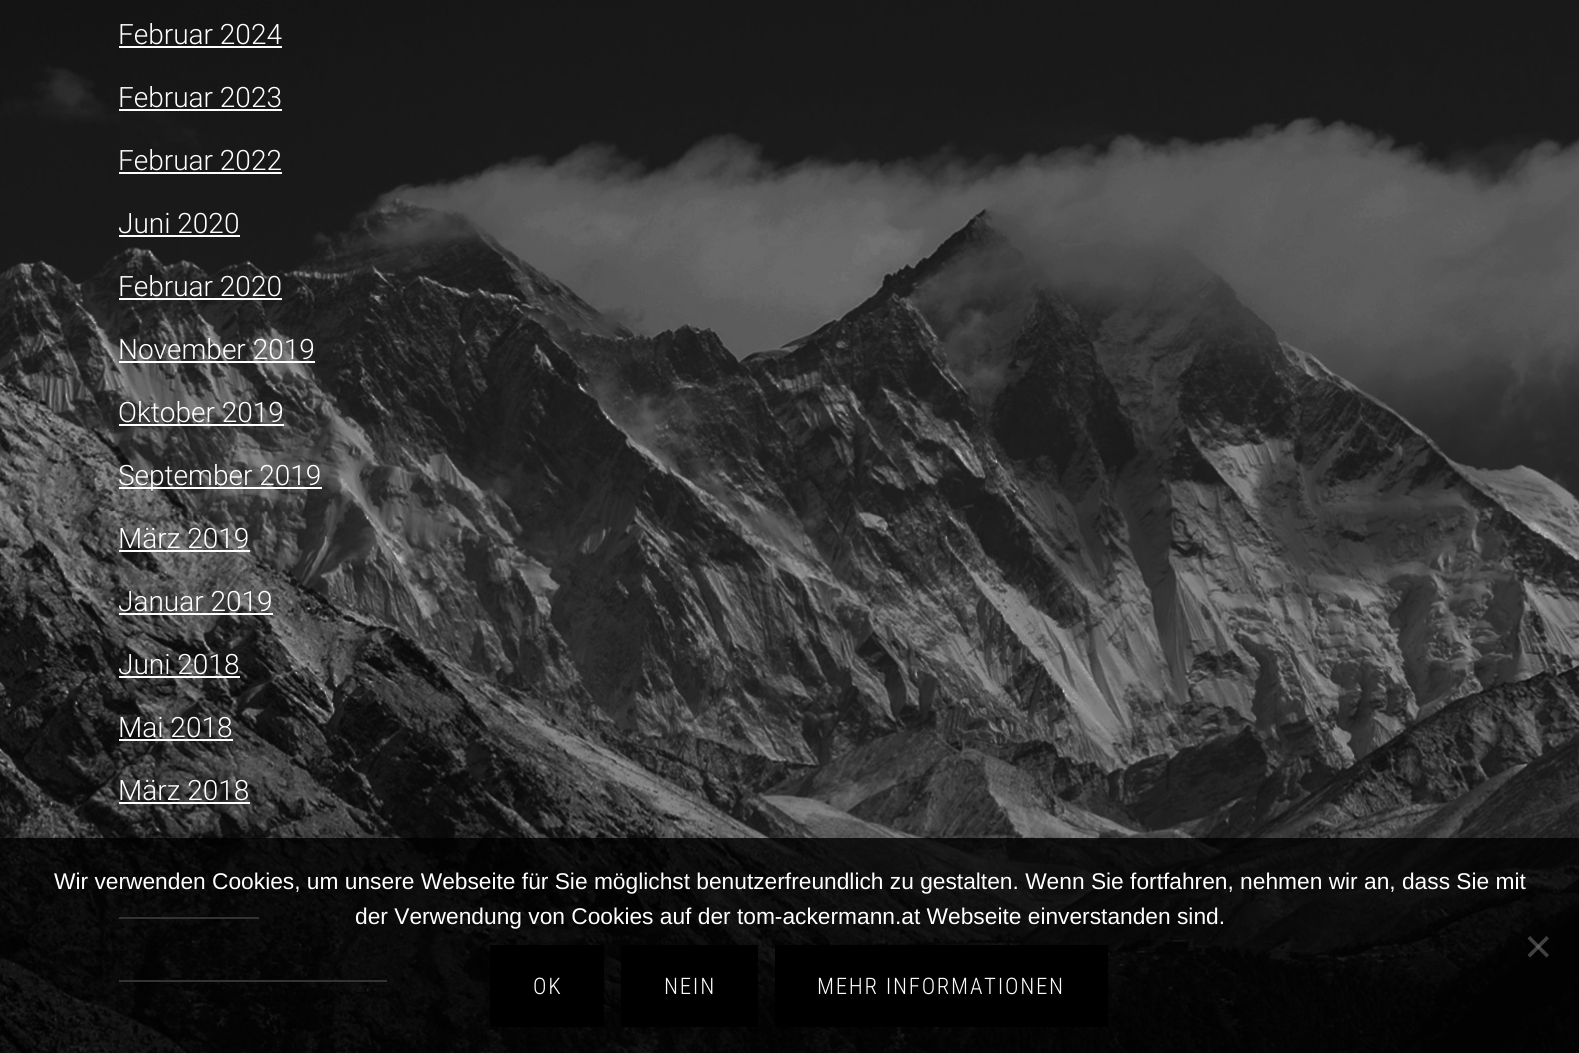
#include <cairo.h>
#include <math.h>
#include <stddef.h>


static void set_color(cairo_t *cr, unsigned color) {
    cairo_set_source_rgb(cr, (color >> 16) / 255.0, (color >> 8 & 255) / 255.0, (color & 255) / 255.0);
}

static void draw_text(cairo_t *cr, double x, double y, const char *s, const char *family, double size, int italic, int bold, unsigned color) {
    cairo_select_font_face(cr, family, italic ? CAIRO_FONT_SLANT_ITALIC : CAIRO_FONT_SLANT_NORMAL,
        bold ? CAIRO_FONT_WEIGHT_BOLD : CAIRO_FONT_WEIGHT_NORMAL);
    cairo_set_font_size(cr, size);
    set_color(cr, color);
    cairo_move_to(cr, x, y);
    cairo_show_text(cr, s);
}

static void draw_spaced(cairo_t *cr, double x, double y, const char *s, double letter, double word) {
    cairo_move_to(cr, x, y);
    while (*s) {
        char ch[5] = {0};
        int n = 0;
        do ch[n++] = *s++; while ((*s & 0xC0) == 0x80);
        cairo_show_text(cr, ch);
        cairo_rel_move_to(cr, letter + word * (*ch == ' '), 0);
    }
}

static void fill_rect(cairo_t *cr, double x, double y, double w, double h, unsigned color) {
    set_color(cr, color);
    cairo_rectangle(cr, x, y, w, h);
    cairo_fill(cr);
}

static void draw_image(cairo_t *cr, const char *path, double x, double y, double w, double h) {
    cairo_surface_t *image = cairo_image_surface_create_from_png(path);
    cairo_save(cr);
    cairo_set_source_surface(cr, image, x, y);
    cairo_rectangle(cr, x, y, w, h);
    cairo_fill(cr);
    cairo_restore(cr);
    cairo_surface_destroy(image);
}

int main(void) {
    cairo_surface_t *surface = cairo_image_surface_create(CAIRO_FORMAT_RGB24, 1579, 1053);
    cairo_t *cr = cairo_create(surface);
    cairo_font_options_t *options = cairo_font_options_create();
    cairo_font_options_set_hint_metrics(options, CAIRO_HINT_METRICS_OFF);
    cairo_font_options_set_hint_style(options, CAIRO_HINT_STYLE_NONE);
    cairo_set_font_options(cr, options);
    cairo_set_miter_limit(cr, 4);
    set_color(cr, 0xFFFFFF);
    cairo_paint(cr);
    draw_image(cr, "assets/img1.png", 0, 0, 1579, 1053);
    draw_text(cr, 118, 44, "Februar 2024", "Roboto Light", 28, 0, 0, 0xFFFFFF);
    fill_rect(cr, 119, 46, 163, 2, 0xFFFFFF);
    draw_text(cr, 118, 107, "Februar 2023", "Roboto Light", 28, 0, 0, 0xFFFFFF);
    fill_rect(cr, 119, 109, 163, 2, 0xFFFFFF);
    draw_text(cr, 118, 170, "Februar 2022", "Roboto Light", 28, 0, 0, 0xFFFFFF);
    fill_rect(cr, 119, 172, 163, 2, 0xFFFFFF);
    draw_text(cr, 118, 233, "Juni 2020", "Roboto Light", 28, 0, 0, 0xFFFFFF);
    fill_rect(cr, 119, 235, 121, 2, 0xFFFFFF);
    draw_text(cr, 118, 296, "Februar 2020", "Roboto Light", 28, 0, 0, 0xFFFFFF);
    fill_rect(cr, 119, 298, 163, 2, 0xFFFFFF);
    draw_text(cr, 118, 359, "November 2019", "Roboto Light", 28, 0, 0, 0xFFFFFF);
    fill_rect(cr, 119, 361, 196, 2, 0xFFFFFF);
    draw_text(cr, 118, 422, "Oktober 2019", "Roboto Light", 28, 0, 0, 0xFFFFFF);
    fill_rect(cr, 119, 424, 165, 2, 0xFFFFFF);
    fill_rect(cr, 119, 487, 203, 2, 0xFFFFFF);
    draw_text(cr, 118, 485, "September 2019", "Roboto Light", 28, 0, 0, 0xFFFFFF);
    draw_text(cr, 118, 548, "März 2019", "Roboto Light", 28, 0, 0, 0xFFFFFF);
    fill_rect(cr, 119, 550, 131, 2, 0xFFFFFF);
    draw_text(cr, 118, 611, "Januar 2019", "Roboto Light", 28, 0, 0, 0xFFFFFF);
    fill_rect(cr, 119, 613, 154, 2, 0xFFFFFF);
    draw_text(cr, 118, 674, "Juni 2018", "Roboto Light", 28, 0, 0, 0xFFFFFF);
    fill_rect(cr, 119, 676, 121, 2, 0xFFFFFF);
    draw_text(cr, 118, 737, "Mai 2018", "Roboto Light", 28, 0, 0, 0xFFFFFF);
    fill_rect(cr, 119, 739, 114, 2, 0xFFFFFF);
    draw_text(cr, 118, 800, "März 2018", "Roboto Light", 28, 0, 0, 0xFFFFFF);
    fill_rect(cr, 119, 802, 131, 2, 0xFFFFFF);
    fill_rect(cr, 119, 917, 140, 2, 0xFFFFFF);
    fill_rect(cr, 119, 980, 268, 2, 0xFFFFFF);
    cairo_set_source_rgba(cr, 0, 0, 0, 0.8);
    cairo_rectangle(cr, 0, 838, 1579, 215);
    cairo_fill(cr);
    draw_text(cr, 54, 889, "Wir verwenden Cookies, um unsere Webseite für Sie möglichst benutzerfreundlich zu gestalten. Wenn Sie fortfahren, nehmen wir an, dass Sie mit", "Liberation Sans", 22.75, 0, 0, 0xFFFFFF);
    draw_text(cr, 355, 924, "der Verwendung von Cookies auf der tom-ackermann.at Webseite einverstanden sind.", "Liberation Sans", 22.75, 0, 0, 0xFFFFFF);
    set_color(cr, 0x414141);
    cairo_new_path(cr);
    cairo_move_to(cr, 1546.5, 936);
    cairo_line_to(cr, 1549, 938.5);
    cairo_line_to(cr, 1530, 957.5);
    cairo_line_to(cr, 1527.5, 955);
    cairo_close_path(cr);
    cairo_fill(cr);
    cairo_set_source_rgba(cr, 0.502, 0.502, 0.502, 0.5);
    cairo_new_path(cr);
    cairo_move_to(cr, 1527.5, 938.5);
    cairo_line_to(cr, 1530, 936);
    cairo_line_to(cr, 1549, 955);
    cairo_line_to(cr, 1546.5, 957.5);
    cairo_close_path(cr);
    cairo_fill(cr);
    fill_rect(cr, 490, 945, 114, 82, 0x000000);
    cairo_select_font_face(cr, "Roboto Condensed Light", CAIRO_FONT_SLANT_NORMAL, CAIRO_FONT_WEIGHT_NORMAL);
    set_color(cr, 0xFFFFFF);
    draw_spaced(cr, 533, 994, "OK", 1.75, 0);
    fill_rect(cr, 621, 945, 137, 82, 0x000000);
    set_color(cr, 0xFFFFFF);
    draw_spaced(cr, 664, 994, "NEIN", 1.75, 0);
    fill_rect(cr, 775, 945, 333, 82, 0x000000);
    set_color(cr, 0xFFFFFF);
    draw_spaced(cr, 817, 994, "MEHR INFORMATIONEN", 1.75, 0);
    cairo_surface_write_to_png(surface, "output.png");
    cairo_font_options_destroy(options);
    cairo_destroy(cr);
    cairo_surface_destroy(surface);
    return 0;
}
